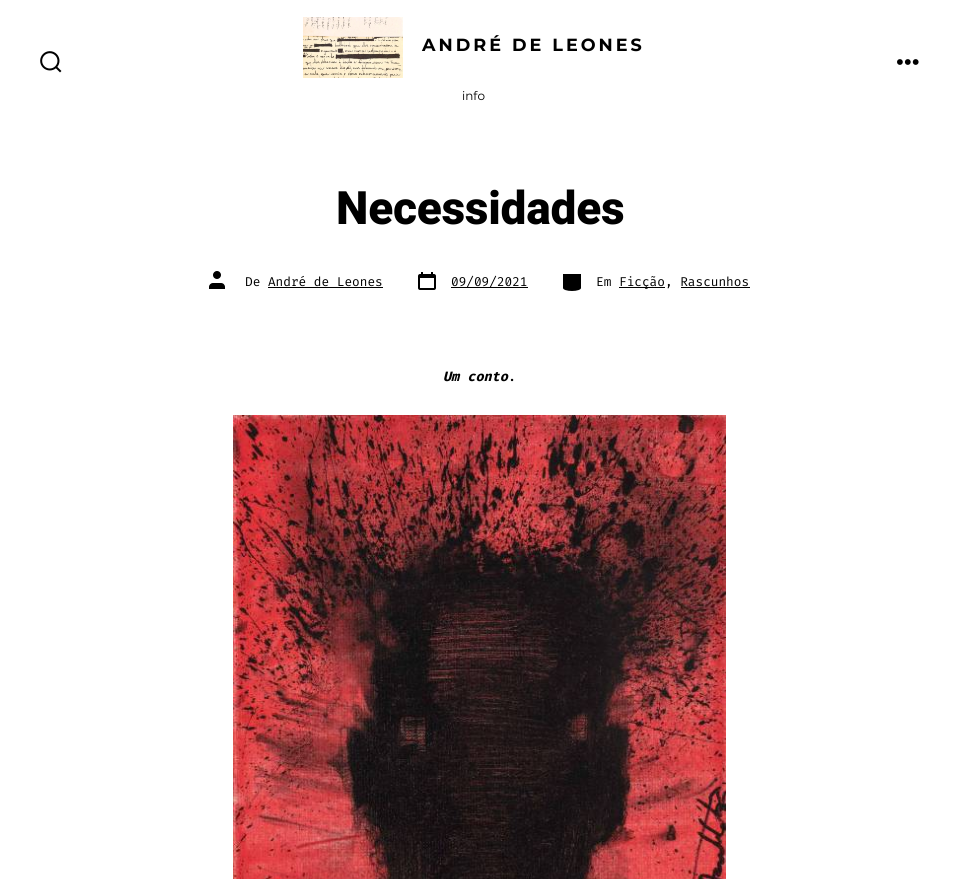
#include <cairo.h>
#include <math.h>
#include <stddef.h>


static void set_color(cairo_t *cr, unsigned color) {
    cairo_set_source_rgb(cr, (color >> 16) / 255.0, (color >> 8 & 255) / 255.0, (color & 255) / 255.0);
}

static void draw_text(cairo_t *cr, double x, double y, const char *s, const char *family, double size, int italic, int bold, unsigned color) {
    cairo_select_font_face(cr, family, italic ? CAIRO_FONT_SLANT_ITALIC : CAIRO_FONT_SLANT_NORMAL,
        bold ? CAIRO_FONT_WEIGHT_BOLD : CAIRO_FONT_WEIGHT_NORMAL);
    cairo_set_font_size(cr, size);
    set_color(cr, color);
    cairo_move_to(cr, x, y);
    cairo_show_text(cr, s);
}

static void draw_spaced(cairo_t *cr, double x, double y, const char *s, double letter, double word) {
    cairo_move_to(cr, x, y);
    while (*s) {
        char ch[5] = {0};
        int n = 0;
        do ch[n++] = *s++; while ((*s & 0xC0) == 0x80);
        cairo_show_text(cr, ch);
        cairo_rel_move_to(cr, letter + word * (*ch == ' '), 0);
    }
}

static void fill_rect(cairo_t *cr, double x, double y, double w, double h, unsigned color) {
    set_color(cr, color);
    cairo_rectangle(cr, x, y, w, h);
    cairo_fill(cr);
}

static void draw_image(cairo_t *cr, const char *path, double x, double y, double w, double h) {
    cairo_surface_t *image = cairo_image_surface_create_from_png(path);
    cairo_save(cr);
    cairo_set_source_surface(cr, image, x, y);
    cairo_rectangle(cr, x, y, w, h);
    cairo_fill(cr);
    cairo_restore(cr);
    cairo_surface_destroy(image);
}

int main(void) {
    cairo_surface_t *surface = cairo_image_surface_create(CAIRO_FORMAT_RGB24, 959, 879);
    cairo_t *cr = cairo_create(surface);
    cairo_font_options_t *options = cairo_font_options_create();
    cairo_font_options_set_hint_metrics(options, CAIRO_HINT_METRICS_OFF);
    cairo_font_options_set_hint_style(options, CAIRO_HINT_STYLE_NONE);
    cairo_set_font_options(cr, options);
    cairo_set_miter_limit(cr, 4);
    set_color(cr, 0xFFFFFF);
    cairo_paint(cr);
    draw_image(cr, "assets/img1.png", 40, 51, 22, 22);
    draw_image(cr, "assets/img2.png", 303, 17, 100, 61);
    cairo_select_font_face(cr, "Montserrat", CAIRO_FONT_SLANT_NORMAL, CAIRO_FONT_WEIGHT_BOLD);
    cairo_set_font_size(cr, 17.6);
    set_color(cr, 0x000000);
    draw_spaced(cr, 422, 51, "ANDRÉ DE LEONES", 3, 0);
    draw_text(cr, 462, 100, "info", "Montserrat", 12, 0, 0, 0x000000);
    draw_image(cr, "assets/img3.png", 897, 59, 22, 6);
    cairo_select_font_face(cr, "Heebo ExtraBold", CAIRO_FONT_SLANT_NORMAL, CAIRO_FONT_WEIGHT_NORMAL);
    cairo_set_font_size(cr, 46);
    draw_spaced(cr, 336, 224, "Necessidades", -0.25, 0);
    draw_image(cr, "assets/img4.png", 209, 271, 16, 18);
    draw_text(cr, 245, 286, "De André de Leones", "Fira Code", 12.75, 0, 0, 0x000000);
    fill_rect(cr, 268, 287, 115, 1, 0x000000);
    draw_image(cr, "assets/img5.png", 418, 272, 18, 18);
    fill_rect(cr, 451, 287, 77, 1, 0x000000);
    draw_text(cr, 451, 286, "09/09/2021", "Fira Code", 12.75, 0, 0, 0x000000);
    draw_image(cr, "assets/img6.png", 563, 274, 18, 17);
    draw_text(cr, 596, 286, "Em", "Fira Code", 12.75, 0, 0, 0x000000);
    fill_rect(cr, 619, 287, 46, 1, 0x000000);
    draw_text(cr, 619, 286, "Ficção, Rascunhos", "Fira Code", 12.75, 0, 0, 0x000000);
    fill_rect(cr, 681, 287, 69, 1, 0x000000);
    draw_text(cr, 443, 381, "Um conto", "Fira Code", 13.5, 1, 1, 0x000000);
    draw_text(cr, 508, 381, ".", "Fira Code", 13.5, 0, 0, 0x000000);
    draw_image(cr, "assets/img7.png", 233, 415, 493, 464);
    cairo_surface_write_to_png(surface, "output.png");
    cairo_font_options_destroy(options);
    cairo_destroy(cr);
    cairo_surface_destroy(surface);
    return 0;
}
